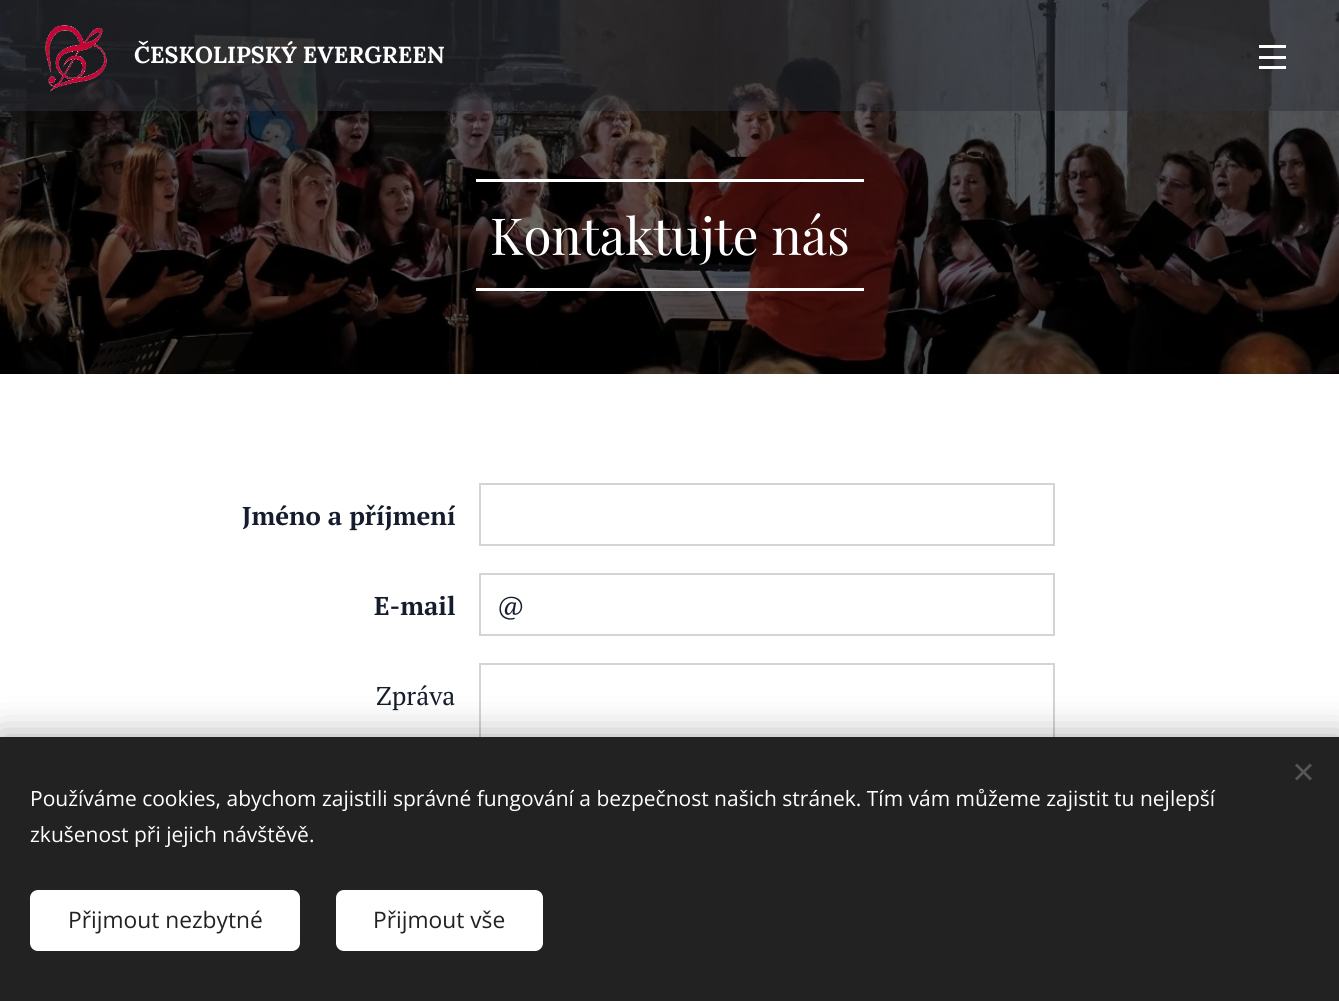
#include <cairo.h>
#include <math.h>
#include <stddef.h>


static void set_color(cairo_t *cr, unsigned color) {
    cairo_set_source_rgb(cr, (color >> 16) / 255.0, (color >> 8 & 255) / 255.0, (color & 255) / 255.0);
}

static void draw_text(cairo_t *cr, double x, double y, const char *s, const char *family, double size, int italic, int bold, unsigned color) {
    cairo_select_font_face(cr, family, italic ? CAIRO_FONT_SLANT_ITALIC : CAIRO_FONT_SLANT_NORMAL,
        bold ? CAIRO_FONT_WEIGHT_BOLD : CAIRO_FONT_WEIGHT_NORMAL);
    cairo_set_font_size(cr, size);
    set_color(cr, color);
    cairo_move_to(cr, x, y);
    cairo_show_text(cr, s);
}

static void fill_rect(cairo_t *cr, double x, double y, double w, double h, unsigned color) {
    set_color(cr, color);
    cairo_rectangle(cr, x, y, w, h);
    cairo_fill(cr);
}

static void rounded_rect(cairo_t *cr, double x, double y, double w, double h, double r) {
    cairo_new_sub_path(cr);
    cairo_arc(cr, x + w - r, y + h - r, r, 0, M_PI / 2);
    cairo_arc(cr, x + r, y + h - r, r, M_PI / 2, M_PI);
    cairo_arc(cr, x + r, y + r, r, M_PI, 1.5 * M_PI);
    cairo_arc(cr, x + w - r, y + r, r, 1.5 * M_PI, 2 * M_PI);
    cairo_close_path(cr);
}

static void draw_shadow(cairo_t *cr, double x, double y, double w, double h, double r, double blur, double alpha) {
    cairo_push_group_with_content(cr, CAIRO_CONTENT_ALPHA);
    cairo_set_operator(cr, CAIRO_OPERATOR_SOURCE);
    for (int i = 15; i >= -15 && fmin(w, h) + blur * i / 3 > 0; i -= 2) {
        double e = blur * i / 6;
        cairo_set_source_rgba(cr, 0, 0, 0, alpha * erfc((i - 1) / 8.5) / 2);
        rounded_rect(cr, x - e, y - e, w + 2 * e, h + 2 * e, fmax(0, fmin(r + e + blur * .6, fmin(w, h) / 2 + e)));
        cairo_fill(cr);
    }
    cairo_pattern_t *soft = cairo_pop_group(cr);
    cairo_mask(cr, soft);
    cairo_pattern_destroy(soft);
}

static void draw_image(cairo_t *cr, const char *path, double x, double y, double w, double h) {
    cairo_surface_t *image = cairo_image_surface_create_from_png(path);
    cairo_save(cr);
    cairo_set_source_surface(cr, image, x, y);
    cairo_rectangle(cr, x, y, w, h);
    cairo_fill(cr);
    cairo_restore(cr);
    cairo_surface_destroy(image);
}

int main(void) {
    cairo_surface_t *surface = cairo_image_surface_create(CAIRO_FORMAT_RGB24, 1339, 1001);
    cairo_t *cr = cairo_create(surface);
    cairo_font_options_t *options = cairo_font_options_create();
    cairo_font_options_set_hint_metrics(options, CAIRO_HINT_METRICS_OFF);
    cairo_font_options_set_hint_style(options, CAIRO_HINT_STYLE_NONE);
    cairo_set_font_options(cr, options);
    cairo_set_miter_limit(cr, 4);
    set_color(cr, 0xFFFFFF);
    cairo_paint(cr);
    draw_image(cr, "assets/img2.png", 0, 0, 1339, 374);
    cairo_set_source_rgba(cr, 0.188, 0.196, 0.231, 0.5);
    cairo_rectangle(cr, 0, 0, 1339, 111);
    cairo_fill(cr);
    draw_image(cr, "assets/img1.png", 45, 25, 62, 67);
    draw_text(cr, 134, 63, "ČESKOLIPSKÝ EVERGREEN", "Lora", 23.25, 0, 1, 0xFFFFFF);
    fill_rect(cr, 1259, 56, 27, 3, 0xFFFFFF);
    fill_rect(cr, 1259, 45, 27, 3, 0xFFFFFF);
    fill_rect(cr, 1259, 66, 27, 3, 0xFFFFFF);
    fill_rect(cr, 476, 179, 388, 3, 0xFFFFFF);
    fill_rect(cr, 476, 288, 388, 3, 0xFFFFFF);
    draw_text(cr, 490, 255, "Kontaktujte nás", "Playfair Display", 51, 0, 0, 0xFFFFFF);
    draw_text(cr, 242, 525, "Jméno a příjmení", "PT Serif", 25.75, 0, 1, 0x141C2D);
    cairo_rectangle(cr, 480, 484, 574, 61);
    set_color(cr, 0xD4D4D4);
    cairo_stroke(cr);
    draw_text(cr, 374, 615, "E-mail", "PT Serif", 25.75, 0, 1, 0x141C2D);
    cairo_rectangle(cr, 480, 574, 574, 61);
    set_color(cr, 0xD4D4D4);
    cairo_stroke(cr);
    draw_text(cr, 497, 615, "@", "PT Serif", 25.75, 0, 0, 0x141C2D);
    draw_text(cr, 376, 705, "Zpráva", "PT Serif", 25.75, 0, 0, 0x141C2D);
    cairo_rectangle(cr, 480, 664, 574, 223);
    set_color(cr, 0xD4D4D4);
    cairo_stroke(cr);
    set_color(cr, 0x000000);
    draw_shadow(cr, 0, 737, 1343, 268, 0, 19, 0.33);
    fill_rect(cr, 0, 737, 1339, 264, 0x222222);
    set_color(cr, 0x555555);
    cairo_new_path(cr);
    cairo_move_to(cr, 1295, 778.5);
    cairo_line_to(cr, 1310, 763.5);
    cairo_line_to(cr, 1312, 765.5);
    cairo_line_to(cr, 1297, 780.5);
    cairo_close_path(cr);
    cairo_fill(cr);
    cairo_new_path(cr);
    cairo_move_to(cr, 1297, 763.5);
    cairo_line_to(cr, 1312, 778.5);
    cairo_line_to(cr, 1310, 780.5);
    cairo_line_to(cr, 1295, 765.5);
    cairo_close_path(cr);
    cairo_fill(cr);
    draw_text(cr, 30, 806, "Používáme cookies, abychom zajistili správné fungování a bezpečnost našich stránek. Tím vám můžeme zajistit tu nejlepší", "Open Sans", 21, 0, 0, 0xFFFFFF);
    draw_text(cr, 30, 842, "zkušenost při jejich návštěvě.", "Open Sans", 21, 0, 0, 0xFFFFFF);
    rounded_rect(cr, 30, 890, 270, 61, 8);
    cairo_fill(cr);
    draw_text(cr, 68, 928, "Přijmout nezbytné", "Open Sans", 22.75, 0, 0, 0x222222);
    set_color(cr, 0xFFFFFF);
    rounded_rect(cr, 336, 890, 207, 61, 8);
    cairo_fill(cr);
    draw_text(cr, 373, 928, "Přijmout vše", "Open Sans", 22.75, 0, 0, 0x222222);
    cairo_surface_write_to_png(surface, "output.png");
    cairo_font_options_destroy(options);
    cairo_destroy(cr);
    cairo_surface_destroy(surface);
    return 0;
}
